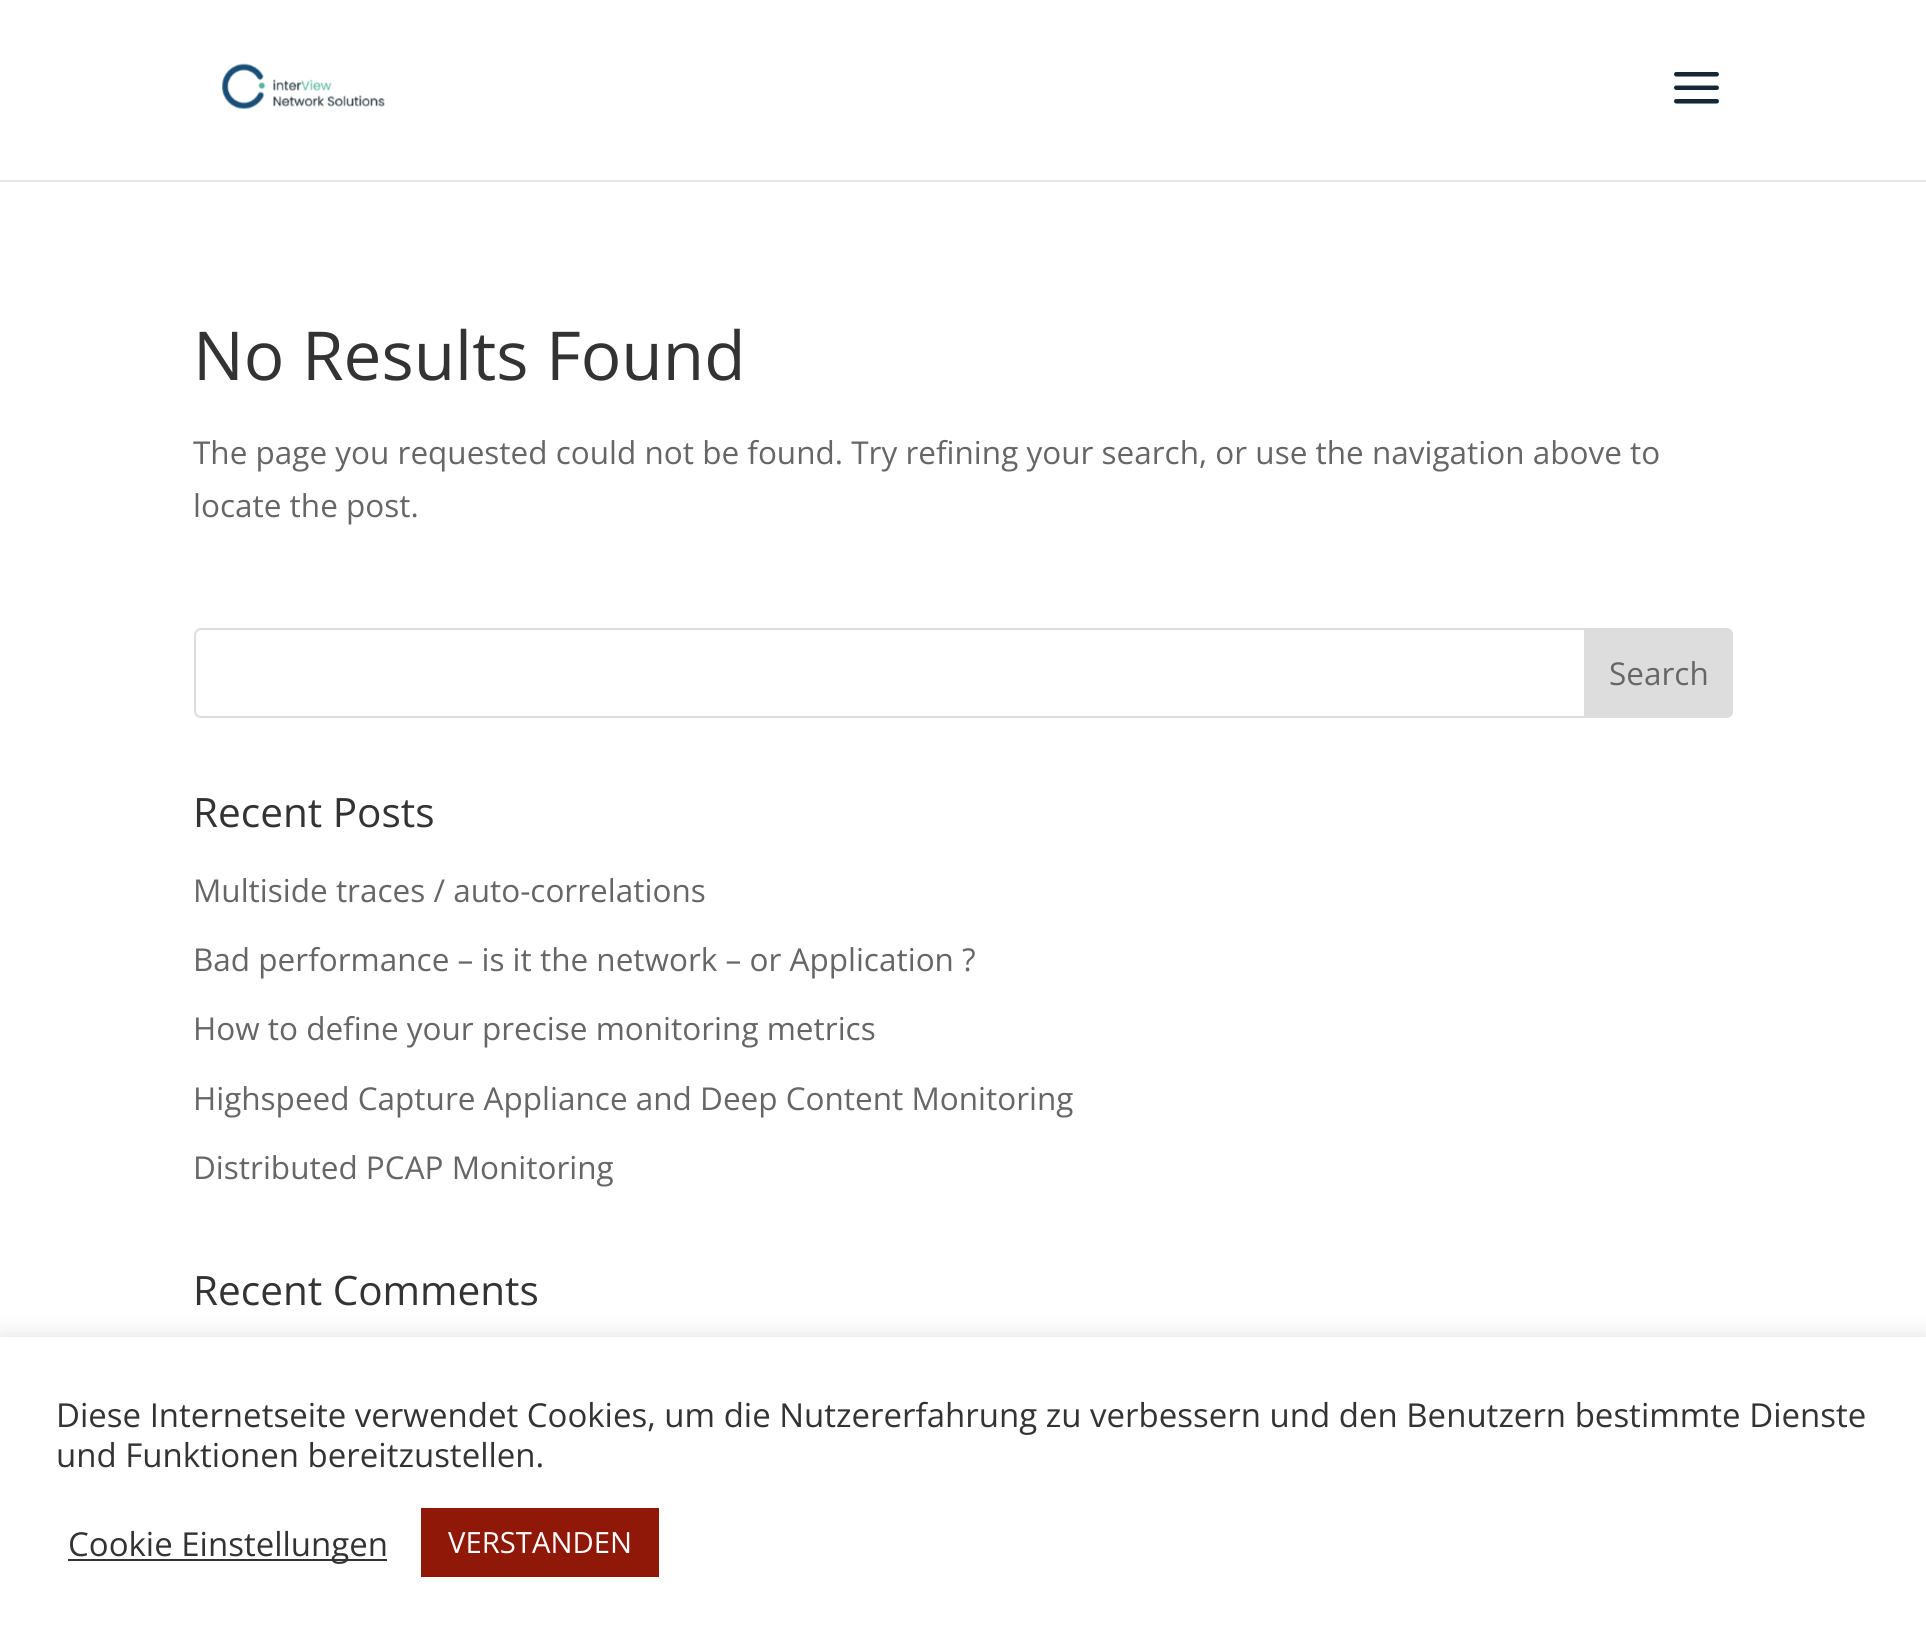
#include <cairo.h>
#include <math.h>
#include <stddef.h>


static void set_color(cairo_t *cr, unsigned color) {
    cairo_set_source_rgb(cr, (color >> 16) / 255.0, (color >> 8 & 255) / 255.0, (color & 255) / 255.0);
}

static void draw_text(cairo_t *cr, double x, double y, const char *s, const char *family, double size, int italic, int bold, unsigned color) {
    cairo_select_font_face(cr, family, italic ? CAIRO_FONT_SLANT_ITALIC : CAIRO_FONT_SLANT_NORMAL,
        bold ? CAIRO_FONT_WEIGHT_BOLD : CAIRO_FONT_WEIGHT_NORMAL);
    cairo_set_font_size(cr, size);
    set_color(cr, color);
    cairo_move_to(cr, x, y);
    cairo_show_text(cr, s);
}

static void fill_rect(cairo_t *cr, double x, double y, double w, double h, unsigned color) {
    set_color(cr, color);
    cairo_rectangle(cr, x, y, w, h);
    cairo_fill(cr);
}

static void rounded_rect(cairo_t *cr, double x, double y, double w, double h, double r) {
    cairo_new_sub_path(cr);
    cairo_arc(cr, x + w - r, y + h - r, r, 0, M_PI / 2);
    cairo_arc(cr, x + r, y + h - r, r, M_PI / 2, M_PI);
    cairo_arc(cr, x + r, y + r, r, M_PI, 1.5 * M_PI);
    cairo_arc(cr, x + w - r, y + r, r, 1.5 * M_PI, 2 * M_PI);
    cairo_close_path(cr);
}

static void draw_shadow(cairo_t *cr, double x, double y, double w, double h, double r, double blur, double alpha) {
    cairo_push_group_with_content(cr, CAIRO_CONTENT_ALPHA);
    cairo_set_operator(cr, CAIRO_OPERATOR_SOURCE);
    for (int i = 15; i >= -15 && fmin(w, h) + blur * i / 3 > 0; i -= 2) {
        double e = blur * i / 6;
        cairo_set_source_rgba(cr, 0, 0, 0, alpha * erfc((i - 1) / 8.5) / 2);
        rounded_rect(cr, x - e, y - e, w + 2 * e, h + 2 * e, fmax(0, fmin(r + e + blur * .6, fmin(w, h) / 2 + e)));
        cairo_fill(cr);
    }
    cairo_pattern_t *soft = cairo_pop_group(cr);
    cairo_mask(cr, soft);
    cairo_pattern_destroy(soft);
}

static void draw_image(cairo_t *cr, const char *path, double x, double y, double w, double h) {
    cairo_surface_t *image = cairo_image_surface_create_from_png(path);
    cairo_save(cr);
    cairo_set_source_surface(cr, image, x, y);
    cairo_rectangle(cr, x, y, w, h);
    cairo_fill(cr);
    cairo_restore(cr);
    cairo_surface_destroy(image);
}

int main(void) {
    cairo_surface_t *surface = cairo_image_surface_create(CAIRO_FORMAT_RGB24, 1926, 1644);
    cairo_t *cr = cairo_create(surface);
    cairo_font_options_t *options = cairo_font_options_create();
    cairo_font_options_set_hint_metrics(options, CAIRO_HINT_METRICS_OFF);
    cairo_font_options_set_hint_style(options, CAIRO_HINT_STYLE_NONE);
    cairo_set_font_options(cr, options);
    cairo_set_miter_limit(cr, 4);
    set_color(cr, 0xFFFFFF);
    cairo_paint(cr);
    fill_rect(cr, 0, 180, 1926, 2, 0xE6E6E6);
    draw_image(cr, "assets/img1.png", 222, 63, 163, 47);
    draw_image(cr, "assets/img2.png", 1674, 72, 45, 32);
    draw_text(cr, 193, 380, "No Results Found", "Open Sans", 67.5, 0, 0, 0x333333);
    draw_text(cr, 193, 464, "The page you requested could not be found. Try refining your search, or use the navigation above to", "Open Sans", 31.5, 0, 0, 0x666666);
    draw_text(cr, 193, 517, "locate the post.", "Open Sans", 31.5, 0, 0, 0x666666);
    rounded_rect(cr, 195, 629, 1537, 88, 6);
    set_color(cr, 0xDDDDDD);
    cairo_stroke(cr);
    cairo_new_path(cr);
    cairo_move_to(cr, 1585, 629);
    cairo_line_to(cr, 1726, 629);
    cairo_curve_to(cr, 1729.5, 629, 1732, 631.5, 1732, 635);
    cairo_line_to(cr, 1732, 711);
    cairo_curve_to(cr, 1732, 714.5, 1729.5, 717, 1726, 717);
    cairo_line_to(cr, 1585, 717);
    cairo_close_path(cr);
    cairo_fill_preserve(cr);
    cairo_stroke(cr);
    draw_text(cr, 1609, 685, "Search", "Open Sans", 31.5, 0, 0, 0x666666);
    draw_text(cr, 193, 827, "Recent Posts", "Open Sans", 40.5, 0, 0, 0x333333);
    draw_text(cr, 193, 902, "Multiside traces / auto-correlations", "Open Sans", 31.5, 0, 0, 0x666666);
    draw_text(cr, 193, 971, "Bad performance – is it the network – or Application ?", "Open Sans", 31.5, 0, 0, 0x666666);
    draw_text(cr, 193, 1040, "How to define your precise monitoring metrics", "Open Sans", 31.5, 0, 0, 0x666666);
    draw_text(cr, 193, 1110, "Highspeed Capture Appliance and Deep Content Monitoring", "Open Sans", 31.5, 0, 0, 0x666666);
    draw_text(cr, 193, 1179, "Distributed PCAP Monitoring", "Open Sans", 31.5, 0, 0, 0x666666);
    draw_text(cr, 193, 1305, "Recent Comments", "Open Sans", 40.5, 0, 0, 0x333333);
    set_color(cr, 0xACABAB);
    draw_shadow(cr, 0, 1334, 1926, 309, 0, 11, 0.3);
    fill_rect(cr, 0, 1337, 1926, 307, 0xFFFFFF);
    draw_text(cr, 56, 1427, "Diese Internetseite verwendet Cookies, um die Nutzererfahrung zu verbessern und den Benutzern bestimmte Dienste", "Open Sans", 33, 0, 0, 0x333333);
    draw_text(cr, 56, 1467, "und Funktionen bereitzustellen.", "Open Sans", 33, 0, 0, 0x333333);
    fill_rect(cr, 68, 1559, 319, 2, 0x333333);
    draw_text(cr, 68, 1556, "Cookie Einstellungen", "Open Sans", 33, 0, 0, 0x333333);
    fill_rect(cr, 421, 1508, 238, 69, 0x901808);
    draw_text(cr, 448, 1553, "VERSTANDEN", "Open Sans", 29.25, 0, 0, 0xFFFFFF);
    cairo_surface_write_to_png(surface, "output.png");
    cairo_font_options_destroy(options);
    cairo_destroy(cr);
    cairo_surface_destroy(surface);
    return 0;
}
